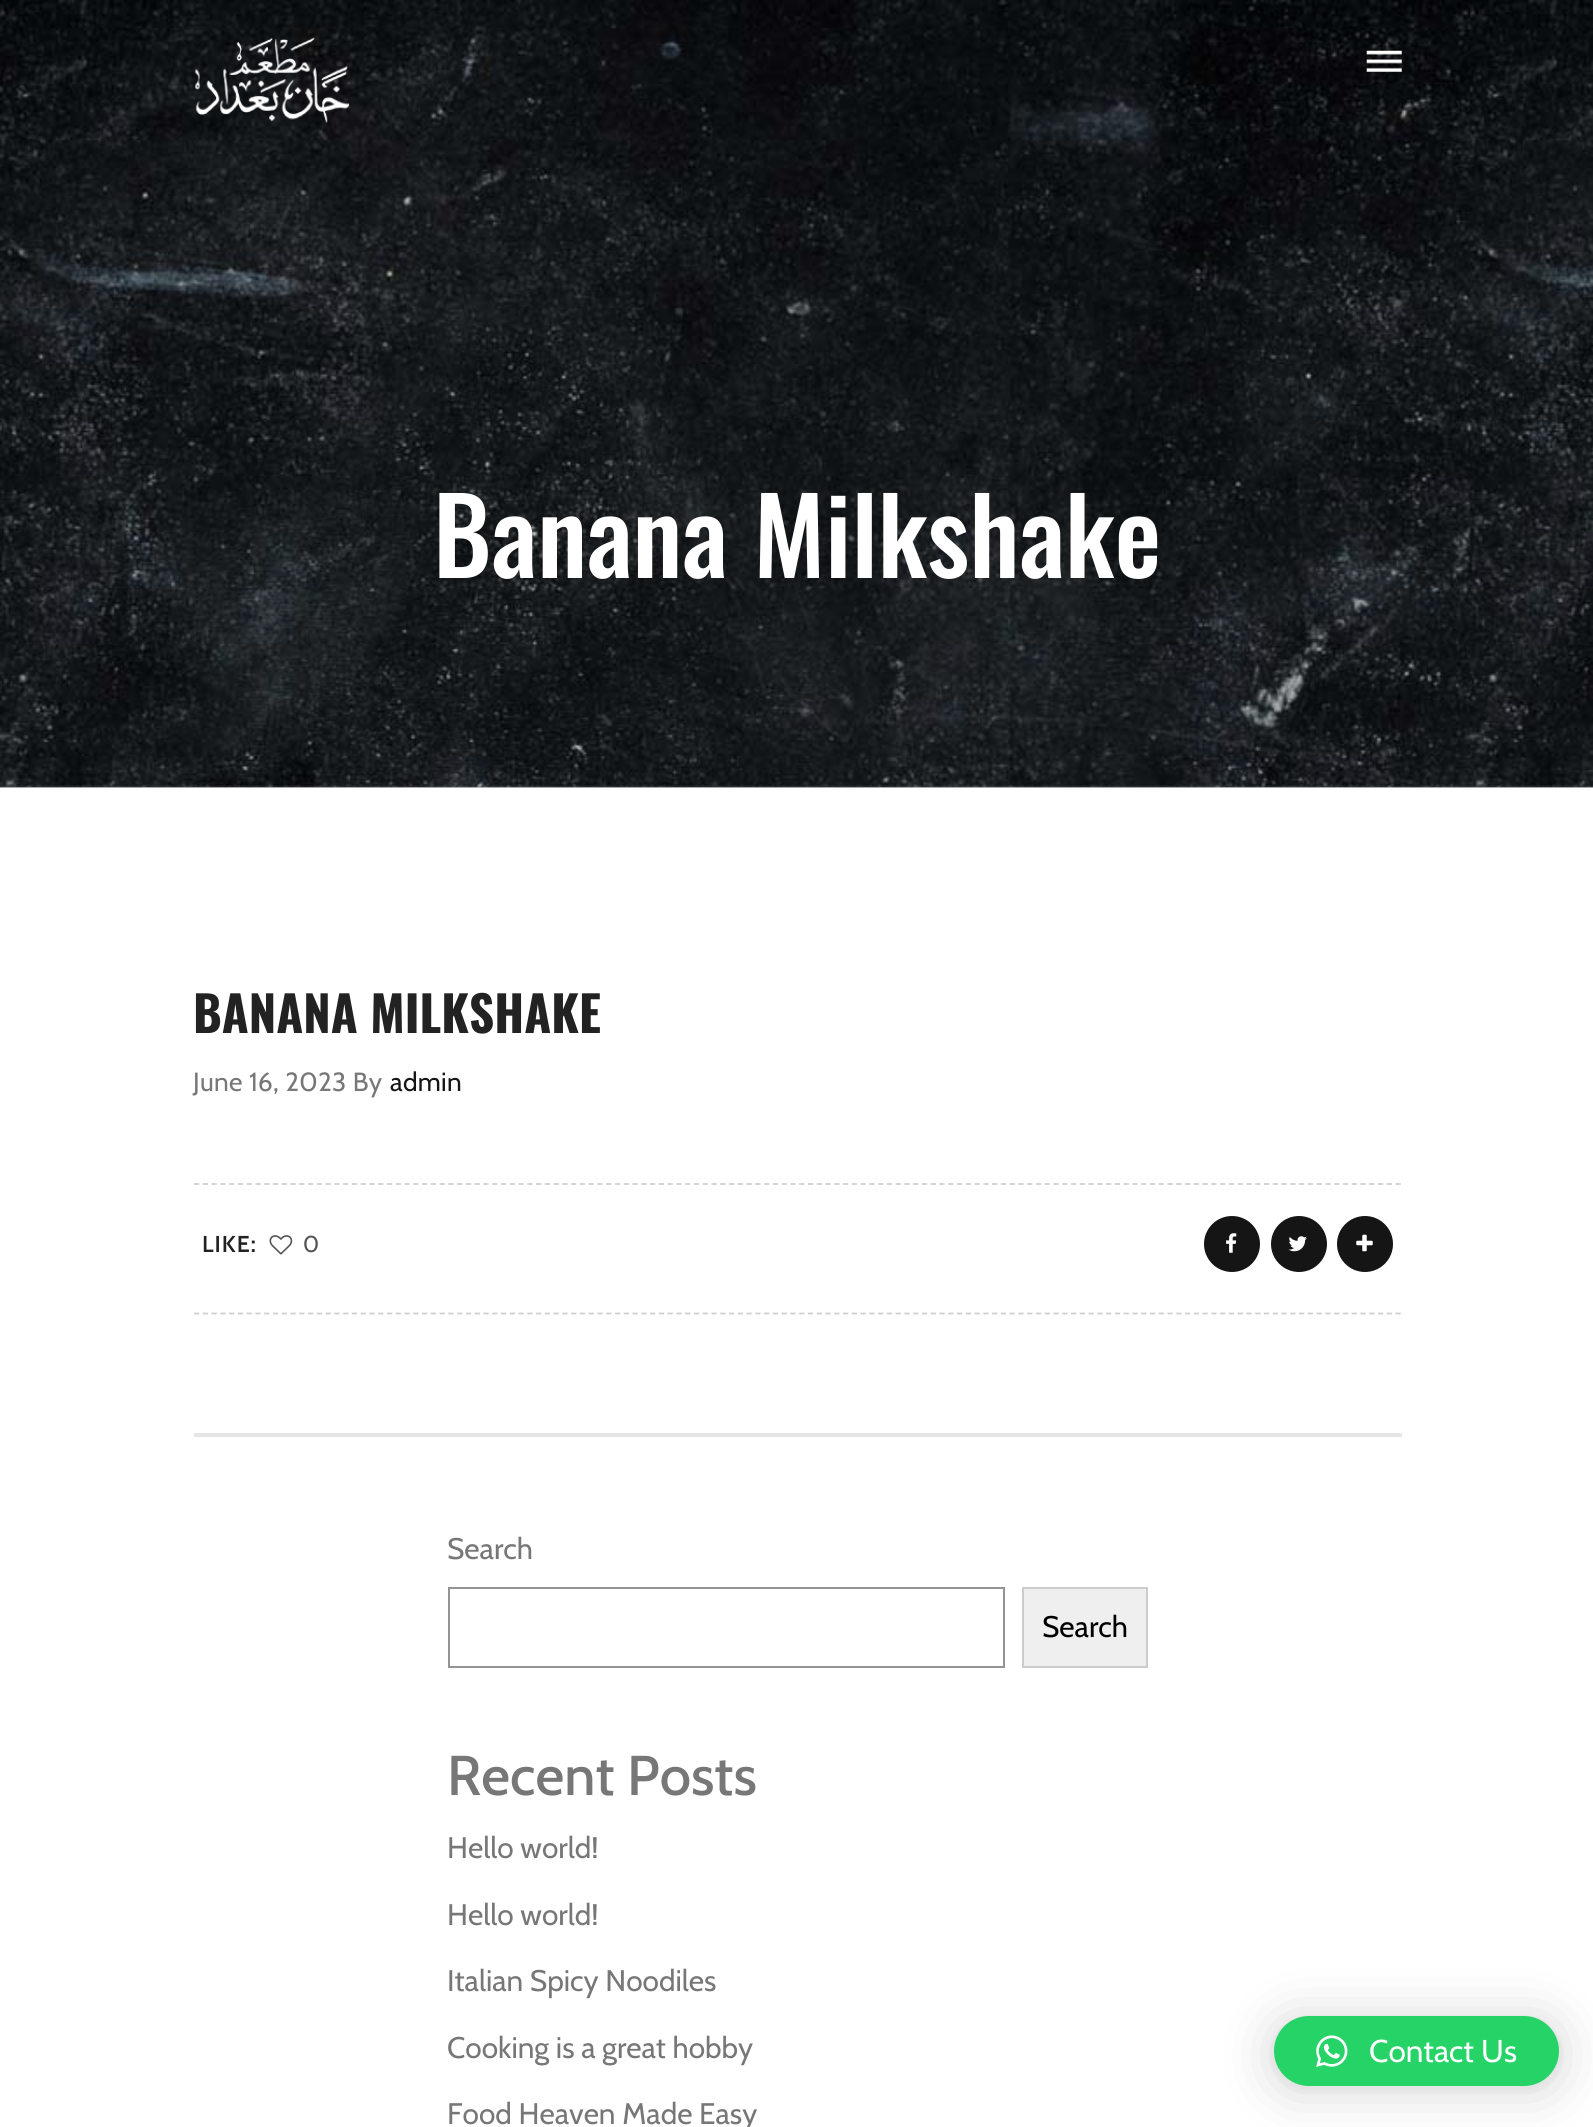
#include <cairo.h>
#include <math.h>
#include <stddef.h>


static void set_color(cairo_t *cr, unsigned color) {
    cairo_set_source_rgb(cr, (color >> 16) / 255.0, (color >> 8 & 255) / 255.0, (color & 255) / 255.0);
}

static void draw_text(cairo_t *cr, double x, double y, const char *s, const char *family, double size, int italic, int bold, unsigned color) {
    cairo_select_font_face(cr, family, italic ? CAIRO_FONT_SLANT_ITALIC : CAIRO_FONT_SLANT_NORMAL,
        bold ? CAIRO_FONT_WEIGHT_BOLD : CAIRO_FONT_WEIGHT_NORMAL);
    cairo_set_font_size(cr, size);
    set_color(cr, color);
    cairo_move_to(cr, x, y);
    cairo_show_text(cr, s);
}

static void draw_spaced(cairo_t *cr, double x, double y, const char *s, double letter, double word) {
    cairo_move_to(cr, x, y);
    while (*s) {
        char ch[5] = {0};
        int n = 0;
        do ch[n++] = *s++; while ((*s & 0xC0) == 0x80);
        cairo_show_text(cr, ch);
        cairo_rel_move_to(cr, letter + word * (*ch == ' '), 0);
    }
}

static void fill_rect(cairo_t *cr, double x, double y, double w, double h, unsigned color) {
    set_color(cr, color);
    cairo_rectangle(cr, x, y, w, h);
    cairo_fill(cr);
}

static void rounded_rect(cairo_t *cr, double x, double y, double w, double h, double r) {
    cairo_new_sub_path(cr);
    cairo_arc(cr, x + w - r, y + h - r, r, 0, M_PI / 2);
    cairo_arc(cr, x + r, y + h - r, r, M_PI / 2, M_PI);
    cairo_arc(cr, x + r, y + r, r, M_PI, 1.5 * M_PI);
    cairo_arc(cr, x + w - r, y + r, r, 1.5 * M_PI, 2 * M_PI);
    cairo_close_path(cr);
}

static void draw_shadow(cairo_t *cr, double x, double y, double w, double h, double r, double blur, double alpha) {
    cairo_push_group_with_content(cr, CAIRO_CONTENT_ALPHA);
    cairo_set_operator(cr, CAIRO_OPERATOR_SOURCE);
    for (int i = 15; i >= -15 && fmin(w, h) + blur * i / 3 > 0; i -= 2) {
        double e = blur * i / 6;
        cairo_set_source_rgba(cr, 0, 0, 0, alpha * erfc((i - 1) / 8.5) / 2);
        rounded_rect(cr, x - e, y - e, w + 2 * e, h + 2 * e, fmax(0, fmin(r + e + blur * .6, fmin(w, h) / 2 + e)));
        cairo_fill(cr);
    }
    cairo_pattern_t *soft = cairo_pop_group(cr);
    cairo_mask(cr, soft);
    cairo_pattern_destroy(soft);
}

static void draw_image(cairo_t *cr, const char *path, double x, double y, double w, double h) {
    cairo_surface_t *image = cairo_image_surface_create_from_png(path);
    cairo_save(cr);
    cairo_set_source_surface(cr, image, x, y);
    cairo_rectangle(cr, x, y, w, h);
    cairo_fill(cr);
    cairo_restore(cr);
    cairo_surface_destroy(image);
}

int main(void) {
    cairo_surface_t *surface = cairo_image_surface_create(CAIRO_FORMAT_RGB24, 1593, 2127);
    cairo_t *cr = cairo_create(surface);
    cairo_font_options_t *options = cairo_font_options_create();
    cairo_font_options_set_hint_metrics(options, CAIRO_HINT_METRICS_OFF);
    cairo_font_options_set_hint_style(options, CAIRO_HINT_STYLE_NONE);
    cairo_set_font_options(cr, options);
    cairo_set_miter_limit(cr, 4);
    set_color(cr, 0xFFFFFF);
    cairo_paint(cr);
    fill_rect(cr, 0, 787, 1593, 1, 0xCCCCCC);
    draw_image(cr, "assets/img3.png", 0, 0, 1593, 788);
    draw_image(cr, "assets/img1.png", 195, 37, 154, 86);
    draw_image(cr, "assets/img2.png", 1366, 50, 36, 22);
    draw_text(cr, 433, 578, "Banana Milkshake", "Oswald Medium", 105, 0, 0, 0xFFFFFF);
    fill_rect(cr, 194, 1433, 1208, 4, 0xE5E5E5);
    draw_text(cr, 193, 1033, "BANANA MILKSHAKE", "Oswald", 49, 0, 1, 0x222222);
    cairo_select_font_face(cr, "Cabin", CAIRO_FONT_SLANT_NORMAL, CAIRO_FONT_WEIGHT_NORMAL);
    cairo_set_font_size(cr, 26.25);
    set_color(cr, 0x777777);
    draw_spaced(cr, 193, 1091, "June 16, 2023 By", 0.3, 0);
    set_color(cr, 0x151515);
    draw_spaced(cr, 390, 1091, "admin", 0.3, 0);
    cairo_new_path(cr);
    cairo_move_to(cr, 194, 1184);
    cairo_line_to(cr, 1402, 1184);
    set_color(cr, 0xCFCFCF);
    cairo_set_line_width(cr, 1.8);
    cairo_set_dash(cr, (double[]){5.25, 3.52}, 2, 0);
    cairo_stroke(cr);
    cairo_new_path(cr);
    cairo_move_to(cr, 194, 1313.5);
    cairo_line_to(cr, 1402, 1313.5);
    cairo_stroke(cr);
    cairo_select_font_face(cr, "Cabin SemiBold", CAIRO_FONT_SLANT_NORMAL, CAIRO_FONT_WEIGHT_NORMAL);
    cairo_set_font_size(cr, 23);
    set_color(cr, 0x222222);
    draw_spaced(cr, 202, 1252, "LIKE:", 1, 0);
    draw_image(cr, "assets/img4.png", 269, 1235, 24, 20);
    cairo_select_font_face(cr, "Cabin", CAIRO_FONT_SLANT_NORMAL, CAIRO_FONT_WEIGHT_NORMAL);
    set_color(cr, 0x555555);
    draw_spaced(cr, 303, 1252, "0", 1, 0);
    set_color(cr, 0x151515);
    cairo_new_path(cr);
    cairo_arc(cr, 1232, 1244, 28, 0, 2 * M_PI);
    cairo_fill(cr);
    draw_image(cr, "assets/img5.png", 1226, 1233, 11, 20);
    cairo_arc(cr, 1299, 1244, 28, 0, 2 * M_PI);
    cairo_fill(cr);
    draw_image(cr, "assets/img6.png", 1288, 1236, 19, 16);
    cairo_arc(cr, 1365, 1244, 28, 0, 2 * M_PI);
    cairo_fill(cr);
    draw_image(cr, "assets/img7.png", 1356, 1234, 17, 18);
    draw_text(cr, 447, 1559, "Search", "Cabin", 29.75, 0, 0, 0x777777);
    cairo_rectangle(cr, 449, 1588, 555, 79);
    set_color(cr, 0x949494);
    cairo_set_line_width(cr, 2);
    cairo_set_dash(cr, NULL, 0, 0);
    cairo_stroke(cr);
    set_color(cr, 0xEFEFEF);
    cairo_rectangle(cr, 1023, 1588, 124, 79);
    cairo_fill_preserve(cr);
    set_color(cr, 0xCCCCCC);
    cairo_stroke(cr);
    draw_text(cr, 1042, 1637, "Search", "Cabin", 29.75, 0, 0, 0x000000);
    draw_text(cr, 447, 1795, "Recent Posts", "Cabin Medium", 56, 0, 0, 0x777777);
    draw_text(cr, 447, 1858, "Hello world!", "Cabin", 29.75, 0, 0, 0x777777);
    draw_text(cr, 447, 1925, "Hello world!", "Cabin", 29.75, 0, 0, 0x777777);
    draw_text(cr, 447, 1991, "Italian Spicy Noodiles", "Cabin", 29.75, 0, 0, 0x777777);
    draw_text(cr, 447, 2058, "Cooking is a great hobby", "Cabin", 29.75, 0, 0, 0x777777);
    draw_text(cr, 447, 2124, "Food Heaven Made Easy", "Cabin", 29.75, 0, 0, 0x777777);
    set_color(cr, 0x000000);
    draw_shadow(cr, 1274, 2020, 285, 70, 35, 28, 0.16);
    draw_shadow(cr, 1274, 2018, 285, 70, 35, 5, 0.06);
    set_color(cr, 0x25D366);
    rounded_rect(cr, 1274, 2016, 285, 70, 35);
    cairo_fill(cr);
    draw_image(cr, "assets/img8.png", 1316, 2035, 32, 32);
    draw_text(cr, 1369, 2062, "Contact Us", "Cabin", 31.5, 0, 0, 0xFFFFFF);
    cairo_surface_write_to_png(surface, "output.png");
    cairo_font_options_destroy(options);
    cairo_destroy(cr);
    cairo_surface_destroy(surface);
    return 0;
}
